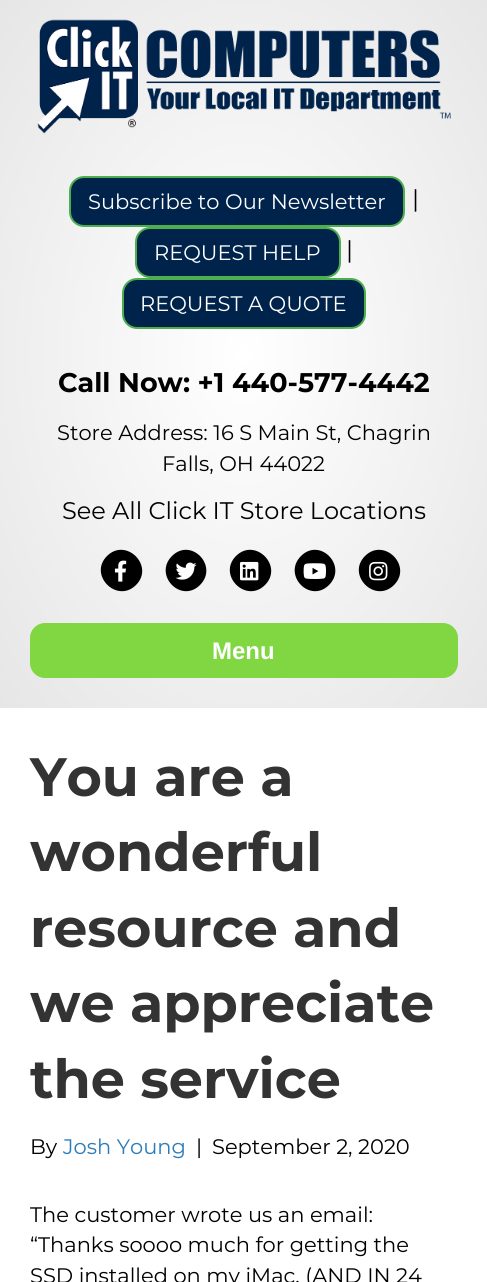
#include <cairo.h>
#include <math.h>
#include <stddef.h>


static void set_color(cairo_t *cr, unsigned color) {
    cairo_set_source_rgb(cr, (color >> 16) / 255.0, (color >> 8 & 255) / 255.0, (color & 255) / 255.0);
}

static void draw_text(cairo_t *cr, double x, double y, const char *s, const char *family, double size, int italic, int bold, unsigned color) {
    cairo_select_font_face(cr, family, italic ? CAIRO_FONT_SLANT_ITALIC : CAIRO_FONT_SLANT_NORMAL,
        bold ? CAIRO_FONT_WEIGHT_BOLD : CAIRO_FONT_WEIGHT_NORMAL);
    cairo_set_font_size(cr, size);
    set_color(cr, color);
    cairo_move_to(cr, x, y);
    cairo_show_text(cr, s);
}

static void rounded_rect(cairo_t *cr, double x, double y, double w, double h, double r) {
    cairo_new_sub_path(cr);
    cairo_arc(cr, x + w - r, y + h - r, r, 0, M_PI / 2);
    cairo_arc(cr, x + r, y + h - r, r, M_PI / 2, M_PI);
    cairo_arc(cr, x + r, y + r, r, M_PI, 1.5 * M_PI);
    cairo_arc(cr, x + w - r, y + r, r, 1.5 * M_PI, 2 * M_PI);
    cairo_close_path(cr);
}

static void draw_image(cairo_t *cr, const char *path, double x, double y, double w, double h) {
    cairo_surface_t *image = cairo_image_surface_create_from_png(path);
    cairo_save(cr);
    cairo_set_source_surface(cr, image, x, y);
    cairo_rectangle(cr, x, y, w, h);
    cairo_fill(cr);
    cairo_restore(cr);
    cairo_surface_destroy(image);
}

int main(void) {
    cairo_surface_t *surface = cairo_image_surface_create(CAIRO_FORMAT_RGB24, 487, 1282);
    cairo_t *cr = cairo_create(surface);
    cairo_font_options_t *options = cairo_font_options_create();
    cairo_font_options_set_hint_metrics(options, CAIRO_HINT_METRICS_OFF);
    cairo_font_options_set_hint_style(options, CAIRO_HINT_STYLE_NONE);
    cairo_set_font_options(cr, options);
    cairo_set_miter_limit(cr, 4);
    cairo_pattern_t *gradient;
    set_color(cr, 0xFFFFFF);
    cairo_paint(cr);
    gradient = cairo_pattern_create_radial(0, 0, 0, 0, 0, 1);
    cairo_pattern_set_matrix(gradient, &(cairo_matrix_t){1.0 / 345, 0, 0, 1.0 / 501, -1.0 * 244 / 345, -1.0 * 354 / 501});
    cairo_pattern_add_color_stop_rgba(gradient, 0, 1, 1, 1, 1);
    cairo_pattern_add_color_stop_rgba(gradient, 1, 0.902, 0.902, 0.902, 1);
    cairo_set_source(cr, gradient);
    cairo_pattern_destroy(gradient);
    cairo_rectangle(cr, 0, 0, 487, 708);
    cairo_fill(cr);
    draw_image(cr, "assets/img1.png", 37, 19, 414, 115);
    set_color(cr, 0x00234B);
    rounded_rect(cr, 70, 177, 334, 49, 14);
    cairo_fill_preserve(cr);
    set_color(cr, 0x4CAE4C);
    cairo_stroke(cr);
    draw_text(cr, 88, 209, "Subscribe to Our Newsletter", "Montserrat", 21, 0, 0, 0xFFFFFF);
    draw_text(cr, 412, 207, "|", "Montserrat", 24, 0, 0, 0x000000);
    set_color(cr, 0x00234B);
    rounded_rect(cr, 136, 228, 204, 49, 14);
    cairo_fill_preserve(cr);
    set_color(cr, 0x4CAE4C);
    cairo_stroke(cr);
    draw_text(cr, 154, 260, "REQUEST HELP", "Montserrat", 21, 0, 0, 0xFFFFFF);
    draw_text(cr, 346, 258, "|", "Montserrat", 24, 0, 0, 0x000000);
    set_color(cr, 0x00234B);
    rounded_rect(cr, 123, 279, 242, 49, 14);
    cairo_fill_preserve(cr);
    set_color(cr, 0x4CAE4C);
    cairo_stroke(cr);
    draw_text(cr, 140, 311, "REQUEST A QUOTE", "Montserrat", 21, 0, 0, 0xFFFFFF);
    draw_text(cr, 58, 392, "Call Now: +1 440-577-4442", "Montserrat", 27, 0, 1, 0x000000);
    draw_text(cr, 57, 440, "Store Address: 16 S Main St, Chagrin", "Montserrat", 21, 0, 0, 0x000000);
    draw_text(cr, 162, 471, "Falls, OH 44022", "Montserrat", 21, 0, 0, 0x000000);
    draw_text(cr, 62, 519, "See All Click IT Store Locations", "Montserrat", 24, 0, 0, 0x000000);
    cairo_new_path(cr);
    cairo_move_to(cr, 107, 556);
    cairo_curve_to(cr, 126, 537, 155, 566, 136, 585);
    cairo_curve_to(cr, 117, 604, 88, 575, 107, 556);
    cairo_close_path(cr);
    cairo_fill(cr);
    draw_image(cr, "assets/img2.png", 114, 560, 13, 22);
    cairo_new_path(cr);
    cairo_move_to(cr, 172, 556);
    cairo_curve_to(cr, 191, 537, 219, 566, 200, 585);
    cairo_curve_to(cr, 181, 604, 153, 575, 172, 556);
    cairo_close_path(cr);
    cairo_fill(cr);
    draw_image(cr, "assets/img3.png", 175, 562, 22, 18);
    cairo_new_path(cr);
    cairo_move_to(cr, 236, 556);
    cairo_curve_to(cr, 255, 537, 284, 566, 265, 585);
    cairo_curve_to(cr, 246, 604, 217, 575, 236, 556);
    cairo_close_path(cr);
    cairo_fill(cr);
    draw_image(cr, "assets/img4.png", 240, 561, 19, 20);
    cairo_new_path(cr);
    cairo_move_to(cr, 301, 556);
    cairo_curve_to(cr, 320, 537, 348, 566, 329, 585);
    cairo_curve_to(cr, 310, 604, 282, 575, 301, 556);
    cairo_close_path(cr);
    cairo_fill(cr);
    draw_image(cr, "assets/img5.png", 303, 563, 23, 16);
    cairo_new_path(cr);
    cairo_move_to(cr, 365, 556);
    cairo_curve_to(cr, 384, 537, 413, 566, 394, 585);
    cairo_curve_to(cr, 375, 604, 346, 575, 365, 556);
    cairo_close_path(cr);
    cairo_fill(cr);
    draw_image(cr, "assets/img6.png", 369, 561, 19, 20);
    set_color(cr, 0x81D742);
    rounded_rect(cr, 30, 623, 428, 55, 15);
    cairo_fill(cr);
    draw_text(cr, 212, 659, "Menu", "Liberation Sans", 24, 0, 1, 0xFFFFFF);
    draw_text(cr, 30, 796, "You are a", "Montserrat", 54, 0, 1, 0x333333);
    draw_text(cr, 30, 871, "wonderful", "Montserrat", 54, 0, 1, 0x333333);
    draw_text(cr, 30, 947, "resource and", "Montserrat", 54, 0, 1, 0x333333);
    draw_text(cr, 30, 1022, "we appreciate", "Montserrat", 54, 0, 1, 0x333333);
    draw_text(cr, 30, 1098, "the service", "Montserrat", 54, 0, 1, 0x333333);
    draw_text(cr, 30, 1154, "By", "Montserrat", 21, 0, 0, 0x000000);
    draw_text(cr, 63, 1154, "Josh Young", "Montserrat", 21, 0, 0, 0x2B7BB9);
    draw_text(cr, 196, 1154, "|", "Montserrat", 21, 0, 0, 0x000000);
    draw_text(cr, 212, 1154, "September 2, 2020", "Montserrat", 21, 0, 0, 0x000000);
    draw_text(cr, 30, 1222, "The customer wrote us an email:", "Montserrat", 21, 0, 0, 0x000000);
    draw_text(cr, 30, 1252, "“Thanks soooo much for getting the", "Montserrat", 21, 0, 0, 0x000000);
    draw_text(cr, 30, 1283, "SSD installed on my iMac. (AND IN 24", "Montserrat", 21, 0, 0, 0x000000);
    cairo_surface_write_to_png(surface, "output.png");
    cairo_font_options_destroy(options);
    cairo_destroy(cr);
    cairo_surface_destroy(surface);
    return 0;
}
